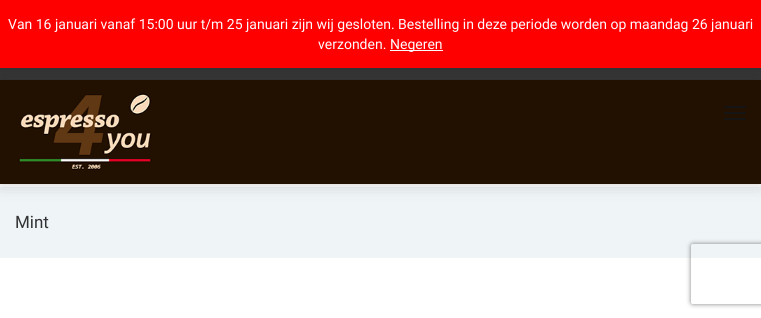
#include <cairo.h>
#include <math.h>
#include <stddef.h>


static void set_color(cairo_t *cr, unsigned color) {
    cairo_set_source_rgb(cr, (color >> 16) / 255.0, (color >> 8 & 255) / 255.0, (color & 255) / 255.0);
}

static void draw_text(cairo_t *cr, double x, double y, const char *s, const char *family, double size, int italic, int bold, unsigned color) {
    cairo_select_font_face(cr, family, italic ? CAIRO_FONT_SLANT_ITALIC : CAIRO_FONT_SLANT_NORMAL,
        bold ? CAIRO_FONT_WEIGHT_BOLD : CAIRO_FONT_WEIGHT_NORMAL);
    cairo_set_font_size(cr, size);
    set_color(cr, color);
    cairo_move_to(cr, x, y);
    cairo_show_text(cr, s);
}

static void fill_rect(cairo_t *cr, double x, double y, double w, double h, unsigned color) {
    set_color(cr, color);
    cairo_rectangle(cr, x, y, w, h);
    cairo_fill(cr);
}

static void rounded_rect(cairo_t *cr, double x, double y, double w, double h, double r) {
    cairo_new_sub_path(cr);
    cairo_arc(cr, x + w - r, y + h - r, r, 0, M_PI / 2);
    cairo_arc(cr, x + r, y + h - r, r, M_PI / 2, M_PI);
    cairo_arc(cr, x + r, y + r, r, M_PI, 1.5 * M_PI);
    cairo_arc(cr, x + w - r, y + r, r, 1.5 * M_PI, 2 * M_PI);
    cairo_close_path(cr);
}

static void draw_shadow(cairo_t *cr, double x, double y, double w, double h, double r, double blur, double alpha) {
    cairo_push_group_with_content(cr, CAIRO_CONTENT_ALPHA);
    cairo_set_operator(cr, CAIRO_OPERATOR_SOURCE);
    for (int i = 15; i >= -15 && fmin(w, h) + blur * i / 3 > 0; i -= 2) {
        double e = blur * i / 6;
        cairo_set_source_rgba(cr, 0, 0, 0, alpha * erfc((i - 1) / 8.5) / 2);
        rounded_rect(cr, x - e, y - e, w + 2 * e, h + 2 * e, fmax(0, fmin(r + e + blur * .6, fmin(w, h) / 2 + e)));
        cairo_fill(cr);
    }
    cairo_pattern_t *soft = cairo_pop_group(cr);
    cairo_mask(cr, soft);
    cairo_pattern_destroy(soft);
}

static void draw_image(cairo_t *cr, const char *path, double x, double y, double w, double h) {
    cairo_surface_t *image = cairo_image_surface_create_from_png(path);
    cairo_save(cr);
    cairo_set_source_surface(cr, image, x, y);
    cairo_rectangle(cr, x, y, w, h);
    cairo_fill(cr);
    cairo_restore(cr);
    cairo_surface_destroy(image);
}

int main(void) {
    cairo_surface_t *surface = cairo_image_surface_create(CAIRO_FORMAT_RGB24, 761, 318);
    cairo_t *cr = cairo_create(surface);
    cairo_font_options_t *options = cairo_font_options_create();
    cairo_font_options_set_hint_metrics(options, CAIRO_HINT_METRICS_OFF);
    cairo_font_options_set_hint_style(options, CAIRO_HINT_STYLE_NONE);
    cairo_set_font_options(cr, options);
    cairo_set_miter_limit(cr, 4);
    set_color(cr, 0xFFFFFF);
    cairo_paint(cr);
    fill_rect(cr, 0, 68, 761, 12, 0x393939);
    fill_rect(cr, 0, 187, 761, 71, 0xEFF4F7);
    set_color(cr, 0x000000);
    draw_shadow(cr, 0, 80, 761, 104, 0, 8, 0.2);
    fill_rect(cr, 0, 80, 761, 104, 0x221000);
    set_color(cr, 0x000000);
    draw_shadow(cr, 0, 1, 761, 68, 0, 7, 0.2);
    fill_rect(cr, 0, 0, 761, 68, 0xFF0000);
    draw_text(cr, 8, 29, "Van 16 januari vanaf 15:00 uur t/m 25 januari zijn wij gesloten. Bestelling in deze periode worden op maandag 26 januari", "Roboto", 14, 0, 0, 0xFCFBFE);
    draw_text(cr, 318, 49, "verzonden.", "Roboto", 14, 0, 0, 0xFCFBFE);
    fill_rect(cr, 390, 50, 53, 1, 0xFCFBFE);
    draw_text(cr, 390, 49, "Negeren", "Roboto", 14, 0, 0, 0xFCFBFE);
    draw_image(cr, "assets/img1.png", 18, 93, 134, 77);
    set_color(cr, 0x151515);
    rounded_rect(cr, 724, 106, 22, 2, 1);
    cairo_fill(cr);
    rounded_rect(cr, 724, 112, 22, 2, 1);
    cairo_fill(cr);
    rounded_rect(cr, 724, 118, 22, 2, 1);
    cairo_fill(cr);
    draw_text(cr, 15, 228, "Mint", "Roboto", 17, 0, 0, 0x333333);
    cairo_save(cr);
    cairo_set_fill_rule(cr, CAIRO_FILL_RULE_EVEN_ODD);
    cairo_new_path(cr);
    cairo_move_to(cr, 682, 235);
    cairo_line_to(cr, 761, 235);
    cairo_line_to(cr, 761, 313);
    cairo_line_to(cr, 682, 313);
    cairo_close_path(cr);
    cairo_move_to(cr, 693, 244);
    cairo_line_to(cr, 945, 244);
    cairo_curve_to(cr, 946, 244, 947, 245, 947, 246);
    cairo_line_to(cr, 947, 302);
    cairo_curve_to(cr, 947, 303, 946, 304, 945, 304);
    cairo_line_to(cr, 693, 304);
    cairo_curve_to(cr, 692, 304, 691, 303, 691, 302);
    cairo_line_to(cr, 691, 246);
    cairo_curve_to(cr, 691, 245, 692, 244, 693, 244);
    cairo_close_path(cr);
    cairo_clip(cr);
    set_color(cr, 0x808080);
    draw_shadow(cr, 691, 244, 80, 60, 2, 2.5, 1);
    cairo_restore(cr);
    cairo_surface_write_to_png(surface, "output.png");
    cairo_font_options_destroy(options);
    cairo_destroy(cr);
    cairo_surface_destroy(surface);
    return 0;
}
